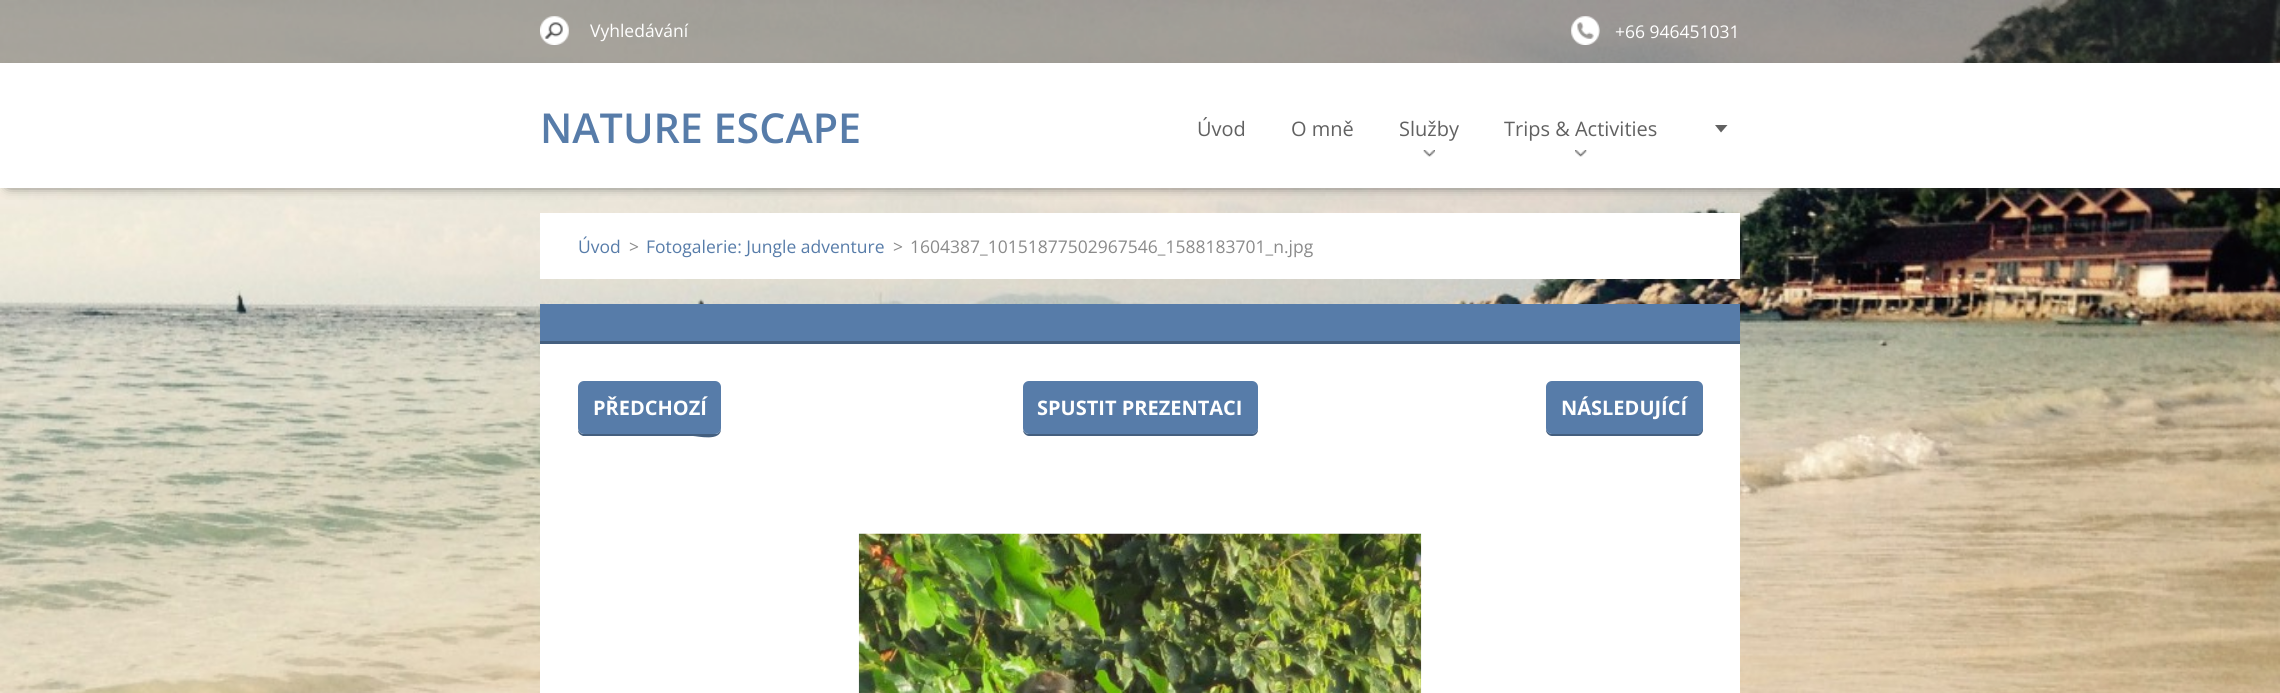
#include <cairo.h>
#include <math.h>
#include <stddef.h>


static void set_color(cairo_t *cr, unsigned color) {
    cairo_set_source_rgb(cr, (color >> 16) / 255.0, (color >> 8 & 255) / 255.0, (color & 255) / 255.0);
}

static void draw_text(cairo_t *cr, double x, double y, const char *s, const char *family, double size, int italic, int bold, unsigned color) {
    cairo_select_font_face(cr, family, italic ? CAIRO_FONT_SLANT_ITALIC : CAIRO_FONT_SLANT_NORMAL,
        bold ? CAIRO_FONT_WEIGHT_BOLD : CAIRO_FONT_WEIGHT_NORMAL);
    cairo_set_font_size(cr, size);
    set_color(cr, color);
    cairo_move_to(cr, x, y);
    cairo_show_text(cr, s);
}

static void fill_rect(cairo_t *cr, double x, double y, double w, double h, unsigned color) {
    set_color(cr, color);
    cairo_rectangle(cr, x, y, w, h);
    cairo_fill(cr);
}

static void rounded_rect(cairo_t *cr, double x, double y, double w, double h, double r) {
    cairo_new_sub_path(cr);
    cairo_arc(cr, x + w - r, y + h - r, r, 0, M_PI / 2);
    cairo_arc(cr, x + r, y + h - r, r, M_PI / 2, M_PI);
    cairo_arc(cr, x + r, y + r, r, M_PI, 1.5 * M_PI);
    cairo_arc(cr, x + w - r, y + r, r, 1.5 * M_PI, 2 * M_PI);
    cairo_close_path(cr);
}

static void draw_shadow(cairo_t *cr, double x, double y, double w, double h, double r, double blur, double alpha) {
    cairo_push_group_with_content(cr, CAIRO_CONTENT_ALPHA);
    cairo_set_operator(cr, CAIRO_OPERATOR_SOURCE);
    for (int i = 15; i >= -15 && fmin(w, h) + blur * i / 3 > 0; i -= 2) {
        double e = blur * i / 6;
        cairo_set_source_rgba(cr, 0, 0, 0, alpha * erfc((i - 1) / 8.5) / 2);
        rounded_rect(cr, x - e, y - e, w + 2 * e, h + 2 * e, fmax(0, fmin(r + e + blur * .6, fmin(w, h) / 2 + e)));
        cairo_fill(cr);
    }
    cairo_pattern_t *soft = cairo_pop_group(cr);
    cairo_mask(cr, soft);
    cairo_pattern_destroy(soft);
}

static void draw_image(cairo_t *cr, const char *path, double x, double y, double w, double h) {
    cairo_surface_t *image = cairo_image_surface_create_from_png(path);
    cairo_save(cr);
    cairo_set_source_surface(cr, image, x, y);
    cairo_rectangle(cr, x, y, w, h);
    cairo_fill(cr);
    cairo_restore(cr);
    cairo_surface_destroy(image);
}

int main(void) {
    cairo_surface_t *surface = cairo_image_surface_create(CAIRO_FORMAT_RGB24, 2280, 693);
    cairo_t *cr = cairo_create(surface);
    cairo_font_options_t *options = cairo_font_options_create();
    cairo_font_options_set_hint_metrics(options, CAIRO_HINT_METRICS_OFF);
    cairo_font_options_set_hint_style(options, CAIRO_HINT_STYLE_NONE);
    cairo_set_font_options(cr, options);
    cairo_set_miter_limit(cr, 4);
    set_color(cr, 0xFFFFFF);
    cairo_paint(cr);
    draw_image(cr, "assets/img1.png", 0, 0, 2280, 693);
    cairo_set_source_rgba(cr, 0.208, 0.208, 0.208, 0.4);
    cairo_rectangle(cr, 0, 0, 2280, 63);
    cairo_fill(cr);
    draw_image(cr, "assets/img2.png", 540, 16, 29, 29);
    draw_text(cr, 590, 37, "Vyhledávání", "Open Sans", 17.5, 0, 0, 0xFFFFFF);
    draw_image(cr, "assets/img3.png", 1571, 16, 29, 29);
    draw_text(cr, 1615, 38, "+66 946451031", "Open Sans", 17.5, 0, 0, 0xFFFFFF);
    set_color(cr, 0x353535);
    draw_shadow(cr, 8, 75, 2265, 110, 0, 6, 1);
    fill_rect(cr, 0, 63, 2280, 125, 0xFFFFFF);
    draw_text(cr, 540, 143, "NATURE ESCAPE", "Open Sans SemiBold", 41.25, 0, 0, 0x577CA9);
    draw_text(cr, 1197, 136, "Úvod", "Open Sans", 20, 0, 0, 0x616161);
    draw_text(cr, 1291, 136, "O mně", "Open Sans", 20, 0, 0, 0x616161);
    draw_text(cr, 1399, 136, "Služby", "Open Sans", 20, 0, 0, 0x616161);
    draw_image(cr, "assets/img4.png", 1423, 150, 12, 7);
    draw_text(cr, 1504, 136, "Trips & Activities", "Open Sans", 20, 0, 0, 0x616161);
    draw_image(cr, "assets/img5.png", 1575, 150, 12, 7);
    cairo_new_path(cr);
    cairo_move_to(cr, 1715, 125);
    cairo_line_to(cr, 1727.5, 125);
    cairo_line_to(cr, 1721, 132.5);
    cairo_close_path(cr);
    cairo_fill(cr);
    fill_rect(cr, 540, 213, 1200, 66, 0xFFFFFF);
    draw_text(cr, 578, 253, "Úvod", "Open Sans", 17.5, 0, 0, 0x577CA9);
    draw_text(cr, 629, 253, ">", "Open Sans", 17.5, 0, 0, 0x8A8A8A);
    draw_text(cr, 646, 253, "Fotogalerie: Jungle adventure", "Open Sans", 17.5, 0, 0, 0x577CA9);
    draw_text(cr, 893, 253, ">", "Open Sans", 17.5, 0, 0, 0x8A8A8A);
    draw_text(cr, 910, 253, "1604387_10151877502967546_1588183701_n.jpg", "Open Sans", 17.5, 0, 0, 0x8A8A8A);
    fill_rect(cr, 540, 344, 1200, 349, 0xFFFFFF);
    fill_rect(cr, 540, 304, 1200, 37, 0x577CA9);
    fill_rect(cr, 540, 341, 1200, 3, 0x445F7F);
    cairo_new_path(cr);
    cairo_move_to(cr, 578, 430);
    cairo_curve_to(cr, 578, 433, 580, 435, 583, 436);
    cairo_line_to(cr, 693, 436);
    cairo_curve_to(cr, 697, 436, 721, 442, 721, 429);
    cairo_curve_to(cr, 720, 432, 718, 434, 715, 434);
    cairo_line_to(cr, 584, 434);
    cairo_curve_to(cr, 581, 434, 579, 432, 578, 430);
    cairo_close_path(cr);
    cairo_fill(cr);
    set_color(cr, 0x577CA9);
    rounded_rect(cr, 578, 381, 143, 53, 6);
    cairo_fill(cr);
    draw_text(cr, 593, 415, "PŘEDCHOZÍ", "Open Sans", 20, 0, 1, 0xFFFFFF);
    set_color(cr, 0x445F7F);
    cairo_new_path(cr);
    cairo_move_to(cr, 1023, 430);
    cairo_curve_to(cr, 1023, 433, 1026, 436, 1029, 436);
    cairo_line_to(cr, 1252, 436);
    cairo_curve_to(cr, 1255, 436, 1258, 433, 1258, 430);
    cairo_line_to(cr, 1258, 390);
    cairo_line_to(cr, 1258, 388);
    cairo_line_to(cr, 1258, 428);
    cairo_curve_to(cr, 1258, 431, 1255, 434, 1251, 434);
    cairo_line_to(cr, 1029, 434);
    cairo_curve_to(cr, 1026, 434, 1024, 432, 1023, 430);
    cairo_close_path(cr);
    cairo_fill(cr);
    set_color(cr, 0x577CA9);
    rounded_rect(cr, 1023, 381, 235, 53, 6);
    cairo_fill(cr);
    draw_text(cr, 1037, 415, "SPUSTIT PREZENTACI", "Open Sans", 20, 0, 1, 0xFFFFFF);
    set_color(cr, 0x445F7F);
    cairo_new_path(cr);
    cairo_move_to(cr, 1546, 388);
    cairo_line_to(cr, 1546, 430);
    cairo_curve_to(cr, 1546, 433, 1549, 436, 1552, 436);
    cairo_line_to(cr, 1697, 436);
    cairo_curve_to(cr, 1700, 436, 1703, 433, 1703, 430);
    cairo_line_to(cr, 1703, 390);
    cairo_line_to(cr, 1702, 388);
    cairo_line_to(cr, 1702, 428);
    cairo_curve_to(cr, 1702, 431, 1700, 434, 1696, 434);
    cairo_line_to(cr, 1552, 434);
    cairo_curve_to(cr, 1549, 434, 1546, 431, 1546, 428);
    cairo_close_path(cr);
    cairo_fill(cr);
    set_color(cr, 0x577CA9);
    rounded_rect(cr, 1546, 381, 157, 53, 6);
    cairo_fill(cr);
    draw_text(cr, 1561, 415, "NÁSLEDUJÍCÍ", "Open Sans", 20, 0, 1, 0xFFFFFF);
    draw_image(cr, "assets/img6.png", 858, 533, 564, 160);
    cairo_surface_write_to_png(surface, "output.png");
    cairo_font_options_destroy(options);
    cairo_destroy(cr);
    cairo_surface_destroy(surface);
    return 0;
}
